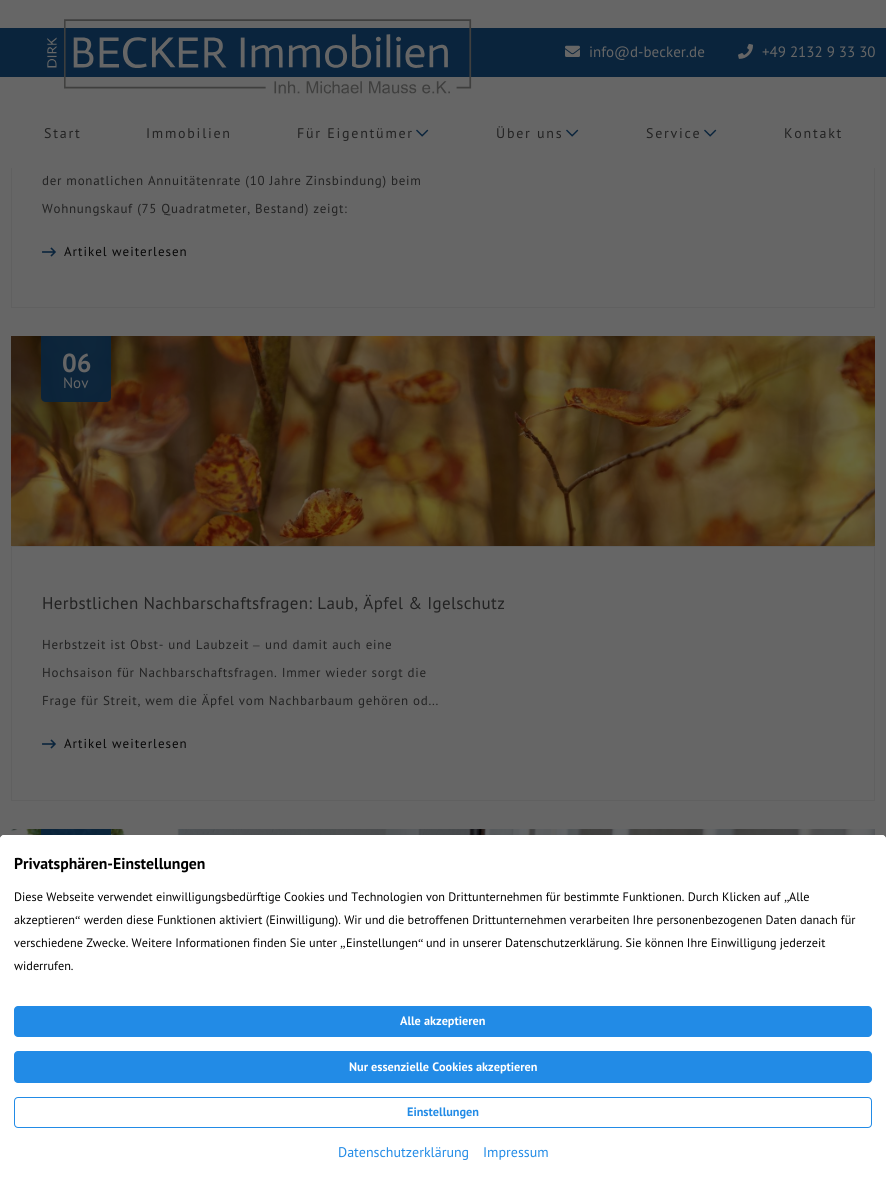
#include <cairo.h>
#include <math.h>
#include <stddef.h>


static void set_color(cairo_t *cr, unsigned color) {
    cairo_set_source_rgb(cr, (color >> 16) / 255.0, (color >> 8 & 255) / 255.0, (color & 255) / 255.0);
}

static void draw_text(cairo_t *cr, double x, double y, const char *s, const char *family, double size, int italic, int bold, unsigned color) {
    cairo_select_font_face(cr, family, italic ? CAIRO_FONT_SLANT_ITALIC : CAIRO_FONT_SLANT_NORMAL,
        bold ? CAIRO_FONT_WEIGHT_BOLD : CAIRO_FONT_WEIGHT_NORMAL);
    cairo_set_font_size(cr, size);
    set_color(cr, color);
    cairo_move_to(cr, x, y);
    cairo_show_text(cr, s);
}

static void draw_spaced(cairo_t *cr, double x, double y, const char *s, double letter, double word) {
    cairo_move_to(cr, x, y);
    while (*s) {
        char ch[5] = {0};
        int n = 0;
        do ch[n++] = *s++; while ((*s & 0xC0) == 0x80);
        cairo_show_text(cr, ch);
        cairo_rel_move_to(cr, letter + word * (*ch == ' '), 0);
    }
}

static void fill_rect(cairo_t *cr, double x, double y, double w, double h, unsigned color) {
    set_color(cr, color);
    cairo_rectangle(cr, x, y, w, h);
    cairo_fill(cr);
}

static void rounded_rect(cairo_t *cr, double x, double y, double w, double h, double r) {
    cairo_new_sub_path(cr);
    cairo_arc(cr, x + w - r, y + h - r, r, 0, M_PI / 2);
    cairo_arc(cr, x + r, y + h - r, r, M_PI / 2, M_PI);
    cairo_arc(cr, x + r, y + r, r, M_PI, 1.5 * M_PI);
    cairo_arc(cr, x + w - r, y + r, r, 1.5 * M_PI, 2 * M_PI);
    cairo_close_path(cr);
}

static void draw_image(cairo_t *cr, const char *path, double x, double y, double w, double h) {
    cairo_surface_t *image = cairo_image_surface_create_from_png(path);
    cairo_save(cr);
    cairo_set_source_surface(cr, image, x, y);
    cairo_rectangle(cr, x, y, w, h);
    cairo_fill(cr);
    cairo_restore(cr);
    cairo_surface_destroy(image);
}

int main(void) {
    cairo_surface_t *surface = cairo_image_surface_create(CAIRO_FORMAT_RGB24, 886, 1185);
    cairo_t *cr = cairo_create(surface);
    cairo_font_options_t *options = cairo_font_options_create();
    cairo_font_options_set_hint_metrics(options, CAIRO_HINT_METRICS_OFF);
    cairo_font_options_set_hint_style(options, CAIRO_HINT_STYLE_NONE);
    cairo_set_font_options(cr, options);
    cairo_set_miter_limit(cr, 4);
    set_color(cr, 0x666666);
    cairo_paint(cr);
    cairo_rectangle(cr, 11.5, 54.5, 863, 253);
    set_color(cr, 0x606060);
    cairo_set_line_width(cr, 1);
    cairo_stroke(cr);
    fill_rect(cr, 11, 54, 864, 114, 0x666666);
    fill_rect(cr, 0, 28, 886, 49, 0x0A243C);
    draw_image(cr, "assets/img1.png", 47, 19, 425, 75);
    draw_image(cr, "assets/img2.png", 565, 45, 15, 12);
    draw_text(cr, 589, 57, "info@d-becker.de", "PT Sans", 15, 0, 0, 0x666666);
    draw_image(cr, "assets/img3.png", 738, 43, 15, 16);
    draw_text(cr, 762, 57, "+49 2132 9 33 30", "PT Sans", 15, 0, 0, 0x666666);
    cairo_set_font_size(cr, 14);
    set_color(cr, 0x222222);
    draw_spaced(cr, 44, 138, "Start", 1.75, 0);
    draw_spaced(cr, 146, 138, "Immobilien", 1.75, 0);
    draw_spaced(cr, 297, 138, "Für Eigentümer", 1.75, 0);
    draw_image(cr, "assets/img4.png", 416, 129, 13, 8);
    draw_spaced(cr, 496, 138, "Über uns", 1.75, 0);
    draw_image(cr, "assets/img4.png", 566, 129, 13, 8);
    draw_spaced(cr, 646, 138, "Service", 1.75, 0);
    draw_image(cr, "assets/img4.png", 704, 129, 13, 8);
    draw_spaced(cr, 784, 138, "Kontakt", 1.75, 0);
    cairo_set_font_size(cr, 13);
    draw_spaced(cr, 42, 185, "der monatlichen Annuitätenrate (10 Jahre Zinsbindung) beim", 0.72, 0);
    draw_spaced(cr, 42, 213, "Wohnungskauf (75 Quadratmeter, Bestand) zeigt:", 0.72, 0);
    draw_image(cr, "assets/img5.png", 42, 247, 14, 10);
    set_color(cr, 0x070707);
    draw_spaced(cr, 64, 256, "Artikel weiterlesen", 1, 0);
    draw_image(cr, "assets/img6.png", 11, 336, 864, 210);
    cairo_set_source_rgba(cr, 0.039, 0.141, 0.235, 0.95);
    cairo_new_path(cr);
    cairo_move_to(cr, 41, 336);
    cairo_line_to(cr, 111, 336);
    cairo_line_to(cr, 111, 397);
    cairo_curve_to(cr, 111, 400, 109, 402, 106, 402);
    cairo_line_to(cr, 46, 402);
    cairo_curve_to(cr, 43, 402, 41, 400, 41, 397);
    cairo_close_path(cr);
    cairo_fill(cr);
    draw_text(cr, 62, 372, "06", "PT Sans", 26, 0, 1, 0x666666);
    draw_text(cr, 63, 388, "Nov", "PT Sans", 15, 0, 0, 0x666666);
    cairo_rectangle(cr, 11.5, 546.5, 863, 254);
    set_color(cr, 0x606060);
    cairo_stroke(cr);
    cairo_set_font_size(cr, 17);
    set_color(cr, 0x222222);
    draw_spaced(cr, 42, 609, "Herbstlichen Nachbarschaftsfragen: Laub, Äpfel & Igelschutz", 0.35, 0);
    cairo_set_font_size(cr, 13);
    draw_spaced(cr, 42, 649, "Herbstzeit ist Obst- und Laubzeit", 0.72, 0);
    cairo_select_font_face(cr, "Liberation Serif", CAIRO_FONT_SLANT_NORMAL, CAIRO_FONT_WEIGHT_NORMAL);
    draw_spaced(cr, 253, 649, "–", 0.72, 0);
    cairo_select_font_face(cr, "PT Sans", CAIRO_FONT_SLANT_NORMAL, CAIRO_FONT_WEIGHT_NORMAL);
    draw_spaced(cr, 265, 649, "und damit auch eine", 0.72, 0);
    draw_spaced(cr, 42, 677, "Hochsaison für Nachbarschaftsfragen. Immer wieder sorgt die", 0.72, 0);
    draw_spaced(cr, 42, 705, "Frage für Streit, wem die Äpfel vom Nachbarbaum gehören od...", 0.72, 0);
    draw_image(cr, "assets/img5.png", 42, 739, 14, 10);
    set_color(cr, 0x070707);
    draw_spaced(cr, 64, 748, "Artikel weiterlesen", 1, 0);
    draw_image(cr, "assets/img7.png", 11, 829, 864, 6);
    cairo_set_source_rgba(cr, 0.039, 0.141, 0.235, 0.95);
    cairo_rectangle(cr, 41, 829, 70, 6);
    cairo_fill(cr);
    set_color(cr, 0xFFFFFF);
    cairo_new_path(cr);
    cairo_move_to(cr, 4, 835);
    cairo_line_to(cr, 882, 835);
    cairo_curve_to(cr, 884, 835, 886, 837, 886, 839);
    cairo_line_to(cr, 886, 1185);
    cairo_line_to(cr, 0, 1185);
    cairo_line_to(cr, 0, 839);
    cairo_curve_to(cr, 0, 837, 2, 835, 4, 835);
    cairo_close_path(cr);
    cairo_fill(cr);
    rounded_rect(cr, 0, 835, 886, 350, 4);
    cairo_fill(cr);
    draw_text(cr, 14, 869, "Privatsphären-Einstellungen", "PT Sans", 15.75, 0, 1, 0x000000);
    draw_text(cr, 14, 901, "Diese Webseite verwendet einwilligungsbedürftige Cookies und Technologien von Drittunternehmen für bestimmte Funktionen. Durch Klicken auf", "PT Sans", 12.25, 0, 0, 0x000000);
    draw_text(cr, 784, 901, "„", "Liberation Serif", 12.25, 0, 0, 0x000000);
    draw_text(cr, 789, 901, "Alle", "PT Sans", 12.25, 0, 0, 0x000000);
    draw_text(cr, 14, 924, "akzeptieren", "PT Sans", 12.25, 0, 0, 0x000000);
    draw_text(cr, 75, 924, "“", "Liberation Serif", 12.25, 0, 0, 0x000000);
    draw_text(cr, 84, 924, "werden diese Funktionen aktiviert (Einwilligung). Wir und die betroffenen Drittunternehmen verarbeiten Ihre personenbezogenen Daten danach für", "PT Sans", 12.25, 0, 0, 0x000000);
    draw_text(cr, 14, 947, "verschiedene Zwecke. Weitere Informationen finden Sie unter", "PT Sans", 12.25, 0, 0, 0x000000);
    draw_text(cr, 340, 947, "„", "Liberation Serif", 12.25, 0, 0, 0x000000);
    draw_text(cr, 346, 947, "Einstellungen", "PT Sans", 12.25, 0, 0, 0x000000);
    draw_text(cr, 418, 947, "“", "Liberation Serif", 12.25, 0, 0, 0x000000);
    draw_text(cr, 426, 947, "und in unserer Datenschutzerklärung. Sie können Ihre Einwilligung jederzeit", "PT Sans", 12.25, 0, 0, 0x000000);
    draw_text(cr, 14, 970, "widerrufen.", "PT Sans", 12.25, 0, 0, 0x000000);
    set_color(cr, 0x228BE6);
    rounded_rect(cr, 14, 1006, 858, 31, 4);
    cairo_fill(cr);
    draw_text(cr, 400, 1025, "Alle akzeptieren", "PT Sans", 12.25, 0, 1, 0xFFFFFF);
    set_color(cr, 0x228BE6);
    rounded_rect(cr, 14, 1051, 858, 32, 4);
    cairo_fill(cr);
    draw_text(cr, 349, 1071, "Nur essenzielle Cookies akzeptieren", "PT Sans", 12.25, 0, 1, 0xFFFFFF);
    rounded_rect(cr, 14.5, 1097.5, 857, 30, 3.5);
    set_color(cr, 0x228BE6);
    cairo_stroke(cr);
    draw_text(cr, 407, 1116, "Einstellungen", "PT Sans", 12.25, 0, 1, 0x228BE6);
    draw_text(cr, 338, 1157, "Datenschutzerklärung", "PT Sans", 14, 0, 0, 0x228BE6);
    draw_text(cr, 483, 1157, "Impressum", "PT Sans", 14, 0, 0, 0x228BE6);
    cairo_surface_write_to_png(surface, "output.png");
    cairo_font_options_destroy(options);
    cairo_destroy(cr);
    cairo_surface_destroy(surface);
    return 0;
}
